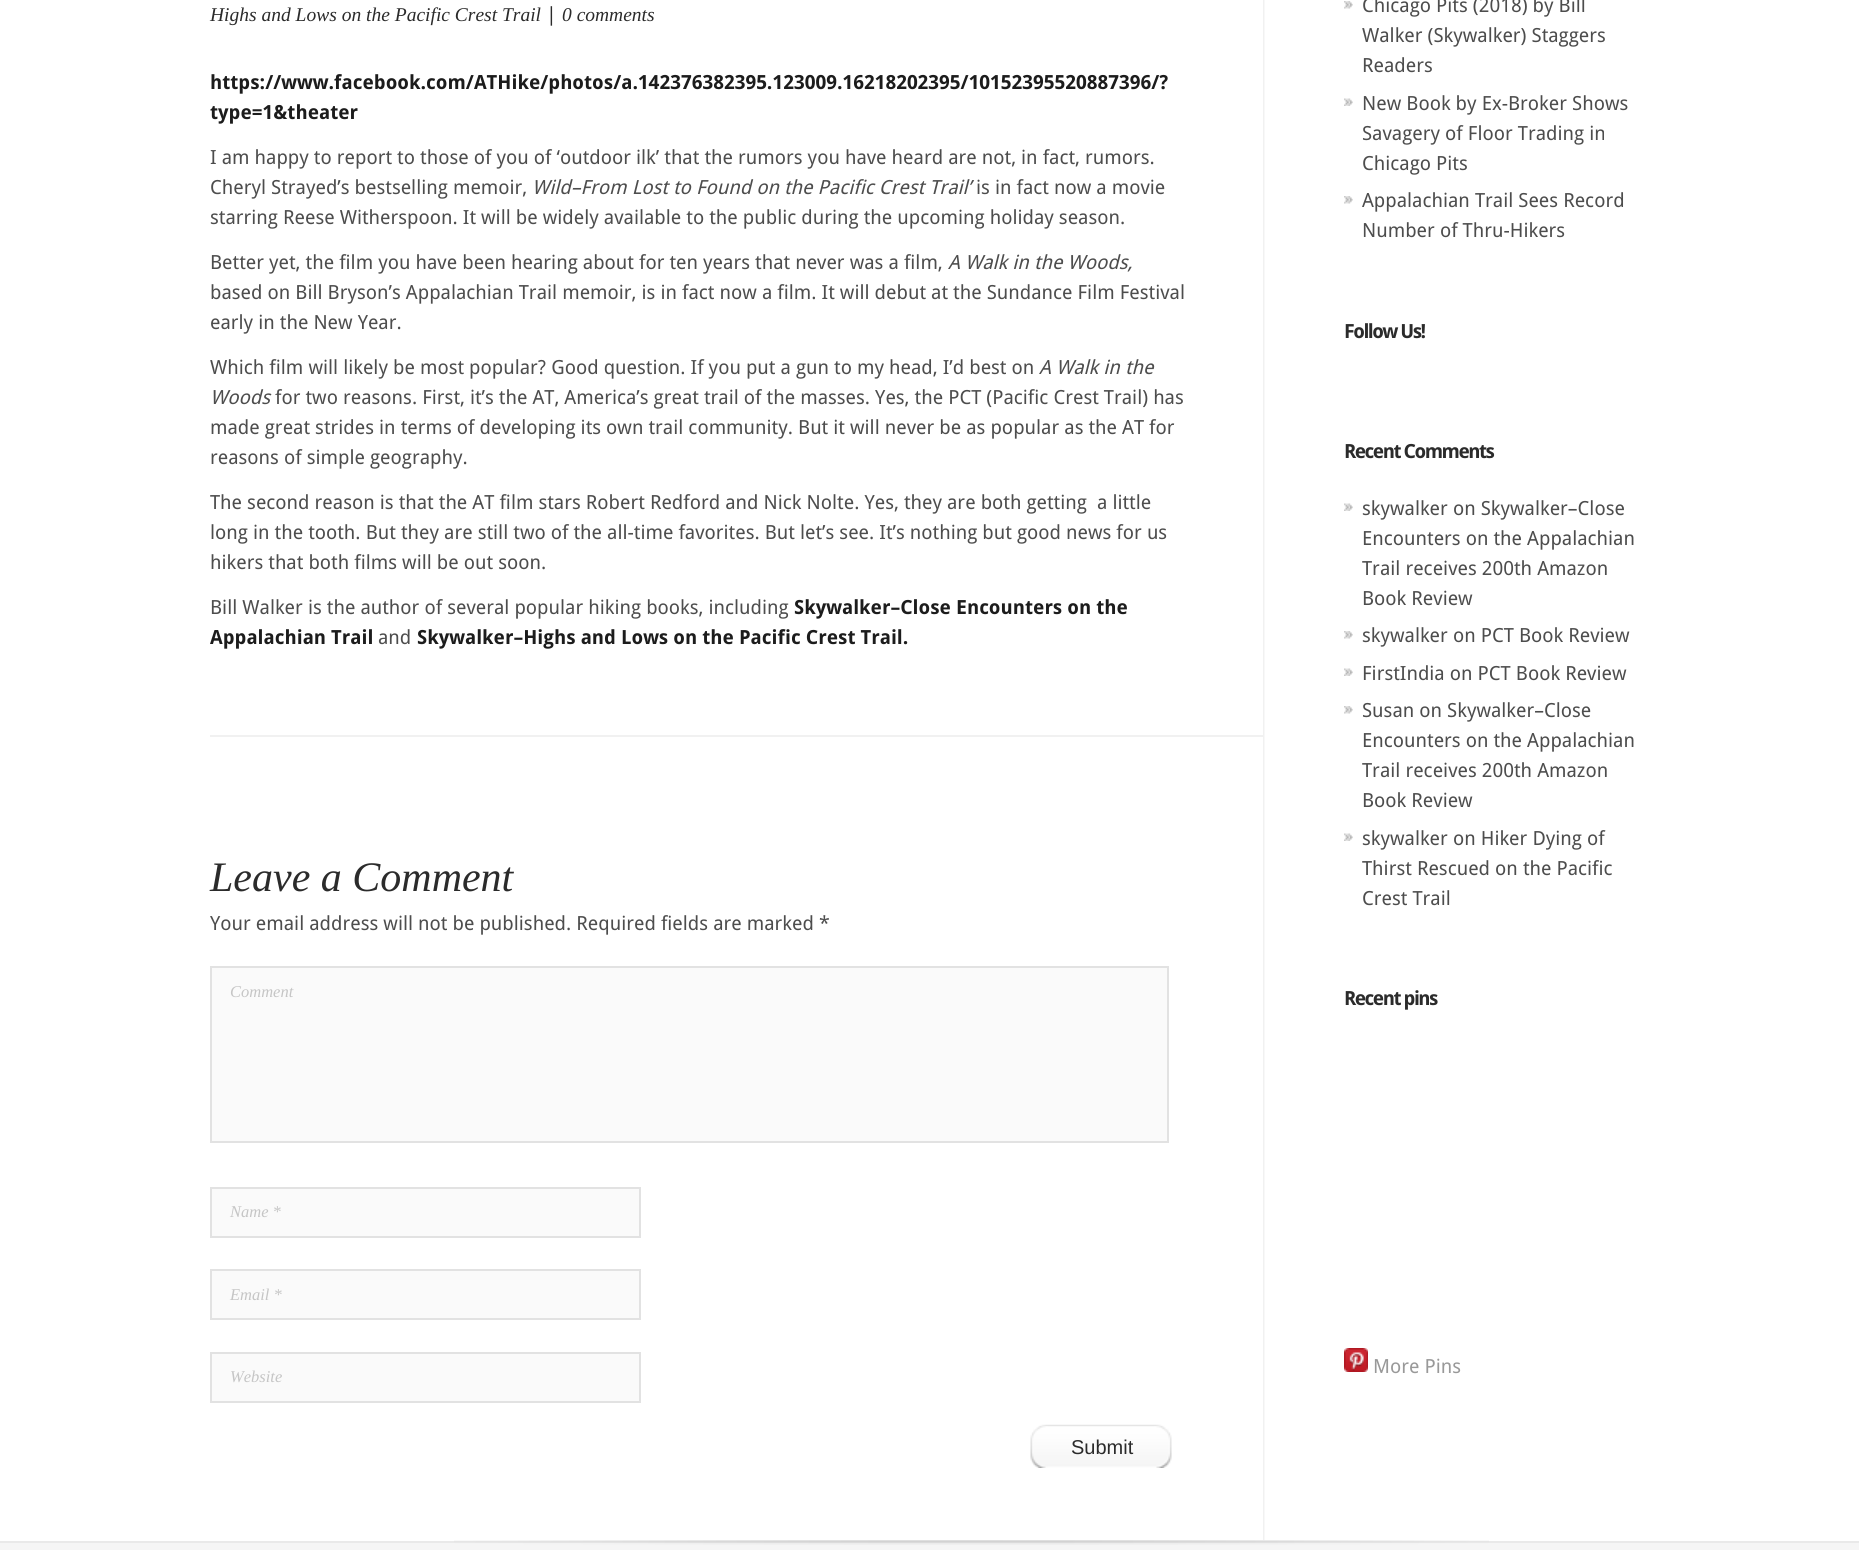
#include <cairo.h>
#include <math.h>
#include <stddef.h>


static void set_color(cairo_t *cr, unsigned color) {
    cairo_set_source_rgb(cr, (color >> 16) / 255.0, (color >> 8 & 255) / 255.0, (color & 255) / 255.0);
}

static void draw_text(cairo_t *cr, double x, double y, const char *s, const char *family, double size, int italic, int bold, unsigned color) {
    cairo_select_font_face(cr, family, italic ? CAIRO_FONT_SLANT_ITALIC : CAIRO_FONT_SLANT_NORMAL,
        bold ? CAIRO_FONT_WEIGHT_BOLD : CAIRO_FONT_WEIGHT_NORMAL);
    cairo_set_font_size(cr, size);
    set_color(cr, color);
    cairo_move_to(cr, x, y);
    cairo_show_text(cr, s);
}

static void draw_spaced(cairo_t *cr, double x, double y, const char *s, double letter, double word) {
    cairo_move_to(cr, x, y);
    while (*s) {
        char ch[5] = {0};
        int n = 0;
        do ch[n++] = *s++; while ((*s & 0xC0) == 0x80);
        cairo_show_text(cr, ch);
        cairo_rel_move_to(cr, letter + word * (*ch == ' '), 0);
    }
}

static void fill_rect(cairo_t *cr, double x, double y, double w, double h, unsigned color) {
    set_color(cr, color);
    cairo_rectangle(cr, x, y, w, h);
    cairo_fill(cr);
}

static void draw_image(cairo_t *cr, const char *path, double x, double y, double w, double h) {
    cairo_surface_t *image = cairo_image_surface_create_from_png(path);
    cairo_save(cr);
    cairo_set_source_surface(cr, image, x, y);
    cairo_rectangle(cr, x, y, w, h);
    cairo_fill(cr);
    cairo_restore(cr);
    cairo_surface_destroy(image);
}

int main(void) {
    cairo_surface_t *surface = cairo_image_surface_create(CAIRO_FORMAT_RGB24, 1859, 1550);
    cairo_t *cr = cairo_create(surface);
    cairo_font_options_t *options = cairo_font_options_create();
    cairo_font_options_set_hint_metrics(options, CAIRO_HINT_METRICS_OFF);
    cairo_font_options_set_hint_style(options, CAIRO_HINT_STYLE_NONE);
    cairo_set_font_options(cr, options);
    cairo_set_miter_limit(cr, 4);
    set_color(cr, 0xF5F5F5);
    cairo_paint(cr);
    fill_rect(cr, 0, 0, 1859, 1541, 0xFFFFFF);
    draw_image(cr, "assets/img1.png", 1263, 0, 2, 1540);
    fill_rect(cr, 210, 735, 1053, 2, 0xF1F1F1);
    draw_text(cr, 210, 21, "Highs and Lows on the Pacific Crest Trail", "Liberation Serif", 19.5, 1, 0, 0x2B2B2B);
    draw_text(cr, 546, 21, "|", "Droid Sans", 19.5, 0, 0, 0x2B2B2B);
    draw_text(cr, 562, 21, "0 comments", "Liberation Serif", 19.5, 1, 0, 0x2B2B2B);
    draw_text(cr, 210, 89, "https://www.facebook.com/ATHike/photos/a.142376382395.123009.16218202395/10152395520887396/?", "Droid Sans", 19.5, 0, 1, 0x1C1C1C);
    draw_text(cr, 210, 119, "type=1&theater", "Droid Sans", 19.5, 0, 1, 0x1C1C1C);
    draw_text(cr, 210, 164, "I am happy to report to those of you of ‘outdoor ilk’ that the rumors you have heard are not, in fact, rumors.", "Droid Sans", 19.5, 0, 0, 0x4D4D4D);
    draw_text(cr, 210, 194, "Cheryl Strayed’s bestselling memoir,", "Droid Sans", 19.5, 0, 0, 0x4D4D4D);
    draw_text(cr, 532, 194, "Wild–From Lost to Found on the Pacific Crest Trail’", "Droid Sans", 19.5, 1, 0, 0x4D4D4D);
    draw_text(cr, 976, 194, "is in fact now a movie", "Droid Sans", 19.5, 0, 0, 0x4D4D4D);
    draw_text(cr, 210, 224, "starring Reese Witherspoon. It will be widely available to the public during the upcoming holiday season.", "Droid Sans", 19.5, 0, 0, 0x4D4D4D);
    draw_text(cr, 210, 269, "Better yet, the film you have been hearing about for ten years that never was a film,", "Droid Sans", 19.5, 0, 0, 0x4D4D4D);
    draw_text(cr, 948, 269, "A Walk in the Woods,", "Droid Sans", 19.5, 1, 0, 0x4D4D4D);
    draw_text(cr, 210, 299, "based on Bill Bryson’s Appalachian Trail memoir, is in fact now a film. It will debut at the Sundance Film Festival", "Droid Sans", 19.5, 0, 0, 0x4D4D4D);
    draw_text(cr, 210, 329, "early in the New Year.", "Droid Sans", 19.5, 0, 0, 0x4D4D4D);
    draw_text(cr, 210, 374, "Which film will likely be most popular? Good question. If you put a gun to my head, I’d best on", "Droid Sans", 19.5, 0, 0, 0x4D4D4D);
    draw_text(cr, 1039, 374, "A Walk in the", "Droid Sans", 19.5, 1, 0, 0x4D4D4D);
    draw_text(cr, 210, 404, "Woods", "Droid Sans", 19.5, 1, 0, 0x4D4D4D);
    draw_text(cr, 275, 404, "for two reasons. First, it’s the AT, America’s great trail of the masses. Yes, the PCT (Pacific Crest Trail) has", "Droid Sans", 19.5, 0, 0, 0x4D4D4D);
    draw_text(cr, 210, 434, "made great strides in terms of developing its own trail community. But it will never be as popular as the AT for", "Droid Sans", 19.5, 0, 0, 0x4D4D4D);
    draw_text(cr, 210, 464, "reasons of simple geography.", "Droid Sans", 19.5, 0, 0, 0x4D4D4D);
    draw_text(cr, 210, 509, "The second reason is that the AT film stars Robert Redford and Nick Nolte. Yes, they are both getting  a little", "Droid Sans", 19.5, 0, 0, 0x4D4D4D);
    draw_text(cr, 210, 539, "long in the tooth. But they are still two of the all-time favorites. But let’s see. It’s nothing but good news for us", "Droid Sans", 19.5, 0, 0, 0x4D4D4D);
    draw_text(cr, 210, 569, "hikers that both films will be out soon.", "Droid Sans", 19.5, 0, 0, 0x4D4D4D);
    draw_text(cr, 210, 614, "Bill Walker is the author of several popular hiking books, including", "Droid Sans", 19.5, 0, 0, 0x4D4D4D);
    draw_text(cr, 794, 614, "Skywalker–Close Encounters on the", "Droid Sans", 19.5, 0, 1, 0x1C1C1C);
    draw_text(cr, 210, 644, "Appalachian Trail", "Droid Sans", 19.5, 0, 1, 0x1C1C1C);
    draw_text(cr, 378, 644, "and", "Droid Sans", 19.5, 0, 0, 0x4D4D4D);
    draw_text(cr, 417, 644, "Skywalker–Highs and Lows on the Pacific Crest Trail.", "Droid Sans", 19.5, 0, 1, 0x1C1C1C);
    draw_text(cr, 210, 891, "Leave a Comment", "Liberation Serif", 42, 1, 0, 0x2B2B2B);
    draw_text(cr, 210, 930, "Your email address will not be published. Required fields are marked *", "Droid Sans", 19.5, 0, 0, 0x4D4D4D);
    set_color(cr, 0xFAFAFA);
    cairo_rectangle(cr, 211, 967, 957, 175);
    cairo_fill_preserve(cr);
    set_color(cr, 0xE2E2E2);
    cairo_stroke(cr);
    draw_text(cr, 230, 997, "Comment", "Liberation Serif", 16.5, 1, 0, 0xC5C5C5);
    set_color(cr, 0xFAFAFA);
    cairo_rectangle(cr, 211, 1188, 429, 49);
    cairo_fill_preserve(cr);
    set_color(cr, 0xE2E2E2);
    cairo_stroke(cr);
    draw_text(cr, 230, 1217, "Name *", "Liberation Serif", 16.5, 1, 0, 0xC5C5C5);
    set_color(cr, 0xFAFAFA);
    cairo_rectangle(cr, 211, 1270, 429, 49);
    cairo_fill_preserve(cr);
    set_color(cr, 0xE2E2E2);
    cairo_stroke(cr);
    draw_text(cr, 230, 1300, "Email *", "Liberation Serif", 16.5, 1, 0, 0xC5C5C5);
    set_color(cr, 0xFAFAFA);
    cairo_rectangle(cr, 211, 1353, 429, 49);
    cairo_fill_preserve(cr);
    set_color(cr, 0xE2E2E2);
    cairo_stroke(cr);
    draw_text(cr, 230, 1382, "Website", "Liberation Serif", 16.5, 1, 0, 0xC5C5C5);
    draw_image(cr, "assets/img2.png", 1030, 1424, 142, 44);
    draw_text(cr, 1071, 1454, "Submit", "Liberation Sans", 20, 0, 0, 0x2B2B2B);
    draw_image(cr, "assets/img3.png", 1344, 1, 9, 8);
    draw_text(cr, 1362, 12, "Chicago Pits (2018) by Bill", "Droid Sans", 19.5, 0, 0, 0x4D4D4D);
    draw_text(cr, 1362, 42, "Walker (Skywalker) Staggers", "Droid Sans", 19.5, 0, 0, 0x4D4D4D);
    draw_text(cr, 1362, 72, "Readers", "Droid Sans", 19.5, 0, 0, 0x4D4D4D);
    draw_image(cr, "assets/img4.png", 1344, 98, 9, 8);
    draw_text(cr, 1362, 110, "New Book by Ex-Broker Shows", "Droid Sans", 19.5, 0, 0, 0x4D4D4D);
    draw_text(cr, 1362, 140, "Savagery of Floor Trading in", "Droid Sans", 19.5, 0, 0, 0x4D4D4D);
    draw_text(cr, 1362, 170, "Chicago Pits", "Droid Sans", 19.5, 0, 0, 0x4D4D4D);
    draw_image(cr, "assets/img3.png", 1344, 196, 9, 8);
    draw_text(cr, 1362, 207, "Appalachian Trail Sees Record", "Droid Sans", 19.5, 0, 0, 0x4D4D4D);
    draw_text(cr, 1362, 237, "Number of Thru-Hikers", "Droid Sans", 19.5, 0, 0, 0x4D4D4D);
    cairo_select_font_face(cr, "Droid Sans", CAIRO_FONT_SLANT_NORMAL, CAIRO_FONT_WEIGHT_BOLD);
    set_color(cr, 0x2B2B2B);
    draw_spaced(cr, 1344, 338, "Follow Us!", -1.5, 0);
    draw_spaced(cr, 1344, 458, "Recent Comments", -1.5, 0);
    draw_image(cr, "assets/img4.png", 1344, 503, 9, 8);
    draw_text(cr, 1362, 515, "skywalker on Skywalker–Close", "Droid Sans", 19.5, 0, 0, 0x4D4D4D);
    draw_text(cr, 1362, 545, "Encounters on the Appalachian", "Droid Sans", 19.5, 0, 0, 0x4D4D4D);
    draw_text(cr, 1362, 575, "Trail receives 200th Amazon", "Droid Sans", 19.5, 0, 0, 0x4D4D4D);
    draw_text(cr, 1362, 605, "Book Review", "Droid Sans", 19.5, 0, 0, 0x4D4D4D);
    draw_image(cr, "assets/img3.png", 1344, 631, 9, 8);
    draw_text(cr, 1362, 642, "skywalker on PCT Book Review", "Droid Sans", 19.5, 0, 0, 0x4D4D4D);
    draw_image(cr, "assets/img4.png", 1344, 668, 9, 8);
    draw_text(cr, 1362, 680, "FirstIndia on PCT Book Review", "Droid Sans", 19.5, 0, 0, 0x4D4D4D);
    draw_image(cr, "assets/img3.png", 1344, 706, 9, 8);
    draw_text(cr, 1362, 717, "Susan on Skywalker–Close", "Droid Sans", 19.5, 0, 0, 0x4D4D4D);
    draw_text(cr, 1362, 747, "Encounters on the Appalachian", "Droid Sans", 19.5, 0, 0, 0x4D4D4D);
    draw_text(cr, 1362, 777, "Trail receives 200th Amazon", "Droid Sans", 19.5, 0, 0, 0x4D4D4D);
    draw_text(cr, 1362, 807, "Book Review", "Droid Sans", 19.5, 0, 0, 0x4D4D4D);
    draw_image(cr, "assets/img4.png", 1344, 833, 9, 8);
    draw_text(cr, 1362, 845, "skywalker on Hiker Dying of", "Droid Sans", 19.5, 0, 0, 0x4D4D4D);
    draw_text(cr, 1362, 875, "Thirst Rescued on the Pacific", "Droid Sans", 19.5, 0, 0, 0x4D4D4D);
    draw_text(cr, 1362, 905, "Crest Trail", "Droid Sans", 19.5, 0, 0, 0x4D4D4D);
    cairo_select_font_face(cr, "Droid Sans", CAIRO_FONT_SLANT_NORMAL, CAIRO_FONT_WEIGHT_BOLD);
    set_color(cr, 0x2B2B2B);
    draw_spaced(cr, 1344, 1005, "Recent pins", -1.5, 0);
    draw_image(cr, "assets/img5.png", 1344, 1348, 24, 24);
    draw_text(cr, 1373, 1373, "More Pins", "Droid Sans", 19.5, 0, 0, 0x999999);
    fill_rect(cr, 0, 1541, 1859, 2, 0xE9E9E9);
    draw_image(cr, "assets/img6.png", 454, 1540, 1035, 5);
    cairo_surface_write_to_png(surface, "output.png");
    cairo_font_options_destroy(options);
    cairo_destroy(cr);
    cairo_surface_destroy(surface);
    return 0;
}
